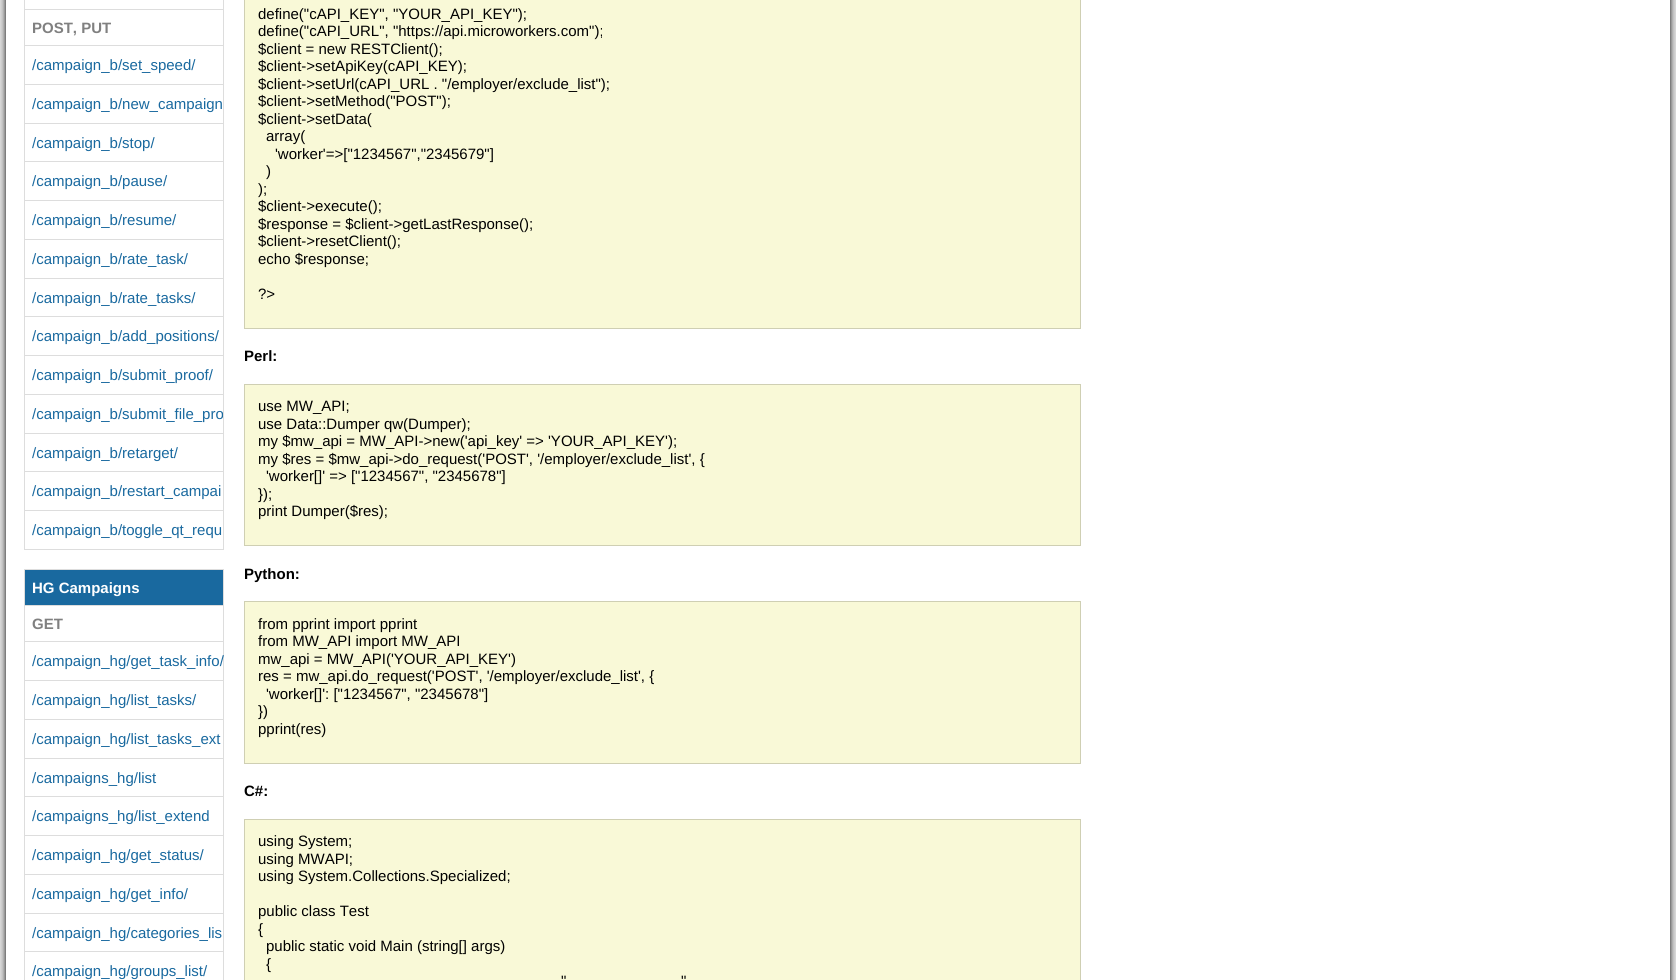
#include <cairo.h>
#include <math.h>
#include <stddef.h>


static void set_color(cairo_t *cr, unsigned color) {
    cairo_set_source_rgb(cr, (color >> 16) / 255.0, (color >> 8 & 255) / 255.0, (color & 255) / 255.0);
}

static void draw_text(cairo_t *cr, double x, double y, const char *s, const char *family, double size, int italic, int bold, unsigned color) {
    cairo_select_font_face(cr, family, italic ? CAIRO_FONT_SLANT_ITALIC : CAIRO_FONT_SLANT_NORMAL,
        bold ? CAIRO_FONT_WEIGHT_BOLD : CAIRO_FONT_WEIGHT_NORMAL);
    cairo_set_font_size(cr, size);
    set_color(cr, color);
    cairo_move_to(cr, x, y);
    cairo_show_text(cr, s);
}

static void fill_rect(cairo_t *cr, double x, double y, double w, double h, unsigned color) {
    set_color(cr, color);
    cairo_rectangle(cr, x, y, w, h);
    cairo_fill(cr);
}

static void rounded_rect(cairo_t *cr, double x, double y, double w, double h, double r) {
    cairo_new_sub_path(cr);
    cairo_arc(cr, x + w - r, y + h - r, r, 0, M_PI / 2);
    cairo_arc(cr, x + r, y + h - r, r, M_PI / 2, M_PI);
    cairo_arc(cr, x + r, y + r, r, M_PI, 1.5 * M_PI);
    cairo_arc(cr, x + w - r, y + r, r, 1.5 * M_PI, 2 * M_PI);
    cairo_close_path(cr);
}

static void draw_shadow(cairo_t *cr, double x, double y, double w, double h, double r, double blur, double alpha) {
    cairo_push_group_with_content(cr, CAIRO_CONTENT_ALPHA);
    cairo_set_operator(cr, CAIRO_OPERATOR_SOURCE);
    for (int i = 15; i >= -15 && fmin(w, h) + blur * i / 3 > 0; i -= 2) {
        double e = blur * i / 6;
        cairo_set_source_rgba(cr, 0, 0, 0, alpha * erfc((i - 1) / 8.5) / 2);
        rounded_rect(cr, x - e, y - e, w + 2 * e, h + 2 * e, fmax(0, fmin(r + e + blur * .6, fmin(w, h) / 2 + e)));
        cairo_fill(cr);
    }
    cairo_pattern_t *soft = cairo_pop_group(cr);
    cairo_mask(cr, soft);
    cairo_pattern_destroy(soft);
}

int main(void) {
    cairo_surface_t *surface = cairo_image_surface_create(CAIRO_FORMAT_RGB24, 1676, 980);
    cairo_t *cr = cairo_create(surface);
    cairo_font_options_t *options = cairo_font_options_create();
    cairo_font_options_set_hint_metrics(options, CAIRO_HINT_METRICS_OFF);
    cairo_font_options_set_hint_style(options, CAIRO_HINT_STYLE_NONE);
    cairo_set_font_options(cr, options);
    cairo_set_miter_limit(cr, 4);
    set_color(cr, 0xDDDDDD);
    cairo_paint(cr);
    set_color(cr, 0x000000);
    draw_shadow(cr, 6, -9, 1664, 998, 0, 3, 1);
    fill_rect(cr, 6, 0, 1664, 980, 0xFFFFFF);
    cairo_rectangle(cr, 24.5, -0.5, 199, 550);
    set_color(cr, 0xDDDDDD);
    cairo_set_line_width(cr, 1);
    cairo_stroke(cr);
    fill_rect(cr, 25, 9, 198, 1, 0xDDDDDD);
    draw_text(cr, 32, 33, "POST, PUT", "Liberation Sans", 15, 0, 1, 0x808080);
    fill_rect(cr, 25, 45, 198, 1, 0xDDDDDD);
    draw_text(cr, 32, 70, "/campaign_b/set_speed/", "Liberation Sans", 15, 0, 0, 0x19699F);
    fill_rect(cr, 25, 84, 198, 1, 0xDDDDDD);
    draw_text(cr, 32, 109, "/campaign_b/new_campaign", "Liberation Sans", 15, 0, 0, 0x19699F);
    fill_rect(cr, 25, 123, 198, 1, 0xDDDDDD);
    draw_text(cr, 32, 148, "/campaign_b/stop/", "Liberation Sans", 15, 0, 0, 0x19699F);
    fill_rect(cr, 25, 161, 198, 1, 0xDDDDDD);
    draw_text(cr, 32, 186, "/campaign_b/pause/", "Liberation Sans", 15, 0, 0, 0x19699F);
    fill_rect(cr, 25, 200, 198, 1, 0xDDDDDD);
    draw_text(cr, 32, 225, "/campaign_b/resume/", "Liberation Sans", 15, 0, 0, 0x19699F);
    fill_rect(cr, 25, 239, 198, 1, 0xDDDDDD);
    draw_text(cr, 32, 264, "/campaign_b/rate_task/", "Liberation Sans", 15, 0, 0, 0x19699F);
    fill_rect(cr, 25, 278, 198, 1, 0xDDDDDD);
    draw_text(cr, 32, 303, "/campaign_b/rate_tasks/", "Liberation Sans", 15, 0, 0, 0x19699F);
    fill_rect(cr, 25, 316, 198, 1, 0xDDDDDD);
    draw_text(cr, 32, 341, "/campaign_b/add_positions/", "Liberation Sans", 15, 0, 0, 0x19699F);
    fill_rect(cr, 25, 355, 198, 1, 0xDDDDDD);
    draw_text(cr, 32, 380, "/campaign_b/submit_proof/", "Liberation Sans", 15, 0, 0, 0x19699F);
    fill_rect(cr, 25, 394, 198, 1, 0xDDDDDD);
    draw_text(cr, 32, 419, "/campaign_b/submit_file_pro", "Liberation Sans", 15, 0, 0, 0x19699F);
    fill_rect(cr, 25, 433, 198, 1, 0xDDDDDD);
    draw_text(cr, 32, 458, "/campaign_b/retarget/", "Liberation Sans", 15, 0, 0, 0x19699F);
    fill_rect(cr, 25, 471, 198, 1, 0xDDDDDD);
    draw_text(cr, 32, 496, "/campaign_b/restart_campai", "Liberation Sans", 15, 0, 0, 0x19699F);
    fill_rect(cr, 25, 510, 198, 1, 0xDDDDDD);
    draw_text(cr, 32, 535, "/campaign_b/toggle_qt_requ", "Liberation Sans", 15, 0, 0, 0x19699F);
    cairo_rectangle(cr, 24.5, 569.5, 199, 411);
    set_color(cr, 0xDDDDDD);
    cairo_stroke(cr);
    fill_rect(cr, 25, 570, 198, 35, 0x19699F);
    draw_text(cr, 32, 593, "HG Campaigns", "Liberation Sans", 15, 0, 1, 0xFFFFFF);
    fill_rect(cr, 25, 605, 198, 1, 0xDDDDDD);
    draw_text(cr, 32, 629, "GET", "Liberation Sans", 15, 0, 1, 0x808080);
    fill_rect(cr, 25, 641, 198, 1, 0xDDDDDD);
    draw_text(cr, 32, 666, "/campaign_hg/get_task_info/", "Liberation Sans", 15, 0, 0, 0x19699F);
    fill_rect(cr, 25, 680, 198, 1, 0xDDDDDD);
    draw_text(cr, 32, 705, "/campaign_hg/list_tasks/", "Liberation Sans", 15, 0, 0, 0x19699F);
    fill_rect(cr, 25, 719, 198, 1, 0xDDDDDD);
    draw_text(cr, 32, 744, "/campaign_hg/list_tasks_ext", "Liberation Sans", 15, 0, 0, 0x19699F);
    fill_rect(cr, 25, 758, 198, 1, 0xDDDDDD);
    draw_text(cr, 32, 783, "/campaigns_hg/list", "Liberation Sans", 15, 0, 0, 0x19699F);
    fill_rect(cr, 25, 796, 198, 1, 0xDDDDDD);
    draw_text(cr, 32, 821, "/campaigns_hg/list_extend", "Liberation Sans", 15, 0, 0, 0x19699F);
    fill_rect(cr, 25, 835, 198, 1, 0xDDDDDD);
    draw_text(cr, 32, 860, "/campaign_hg/get_status/", "Liberation Sans", 15, 0, 0, 0x19699F);
    fill_rect(cr, 25, 874, 198, 1, 0xDDDDDD);
    draw_text(cr, 32, 899, "/campaign_hg/get_info/", "Liberation Sans", 15, 0, 0, 0x19699F);
    fill_rect(cr, 25, 913, 198, 1, 0xDDDDDD);
    draw_text(cr, 32, 938, "/campaign_hg/categories_lis", "Liberation Sans", 15, 0, 0, 0x19699F);
    fill_rect(cr, 25, 951, 198, 1, 0xDDDDDD);
    draw_text(cr, 32, 976, "/campaign_hg/groups_list/", "Liberation Sans", 15, 0, 0, 0x19699F);
    set_color(cr, 0xF9F9D7);
    cairo_rectangle(cr, 244.5, -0.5, 836, 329);
    cairo_fill_preserve(cr);
    set_color(cr, 0xCFCFB3);
    cairo_stroke(cr);
    draw_text(cr, 258, 19, "define(\"cAPI_KEY\", \"YOUR_API_KEY\");", "Liberation Sans", 15, 0, 0, 0x000000);
    draw_text(cr, 258, 36, "define(\"cAPI_URL\", \"https://api.microworkers.com\");", "Liberation Sans", 15, 0, 0, 0x000000);
    draw_text(cr, 258, 54, "$client = new RESTClient();", "Liberation Sans", 15, 0, 0, 0x000000);
    draw_text(cr, 258, 71, "$client->setApiKey(cAPI_KEY);", "Liberation Sans", 15, 0, 0, 0x000000);
    draw_text(cr, 258, 89, "$client->setUrl(cAPI_URL . \"/employer/exclude_list\");", "Liberation Sans", 15, 0, 0, 0x000000);
    draw_text(cr, 258, 106, "$client->setMethod(\"POST\");", "Liberation Sans", 15, 0, 0, 0x000000);
    draw_text(cr, 258, 124, "$client->setData(", "Liberation Sans", 15, 0, 0, 0x000000);
    draw_text(cr, 266, 141, "array(", "Liberation Sans", 15, 0, 0, 0x000000);
    draw_text(cr, 275, 159, "'worker'=>[\"1234567\",\"2345679\"]", "Liberation Sans", 15, 0, 0, 0x000000);
    draw_text(cr, 266, 176, ")", "Liberation Sans", 15, 0, 0, 0x000000);
    draw_text(cr, 258, 194, ");", "Liberation Sans", 15, 0, 0, 0x000000);
    draw_text(cr, 258, 211, "$client->execute();", "Liberation Sans", 15, 0, 0, 0x000000);
    draw_text(cr, 258, 229, "$response = $client->getLastResponse();", "Liberation Sans", 15, 0, 0, 0x000000);
    draw_text(cr, 258, 246, "$client->resetClient();", "Liberation Sans", 15, 0, 0, 0x000000);
    draw_text(cr, 258, 264, "echo $response;", "Liberation Sans", 15, 0, 0, 0x000000);
    draw_text(cr, 258, 299, "?>", "Liberation Sans", 15, 0, 0, 0x000000);
    draw_text(cr, 244, 361, "Perl:", "Liberation Sans", 15, 0, 1, 0x000000);
    set_color(cr, 0xF9F9D7);
    cairo_rectangle(cr, 244.5, 384.5, 836, 161);
    cairo_fill_preserve(cr);
    set_color(cr, 0xCFCFB3);
    cairo_stroke(cr);
    draw_text(cr, 258, 411, "use MW_API;", "Liberation Sans", 15, 0, 0, 0x000000);
    draw_text(cr, 258, 429, "use Data::Dumper qw(Dumper);", "Liberation Sans", 15, 0, 0, 0x000000);
    draw_text(cr, 258, 446, "my $mw_api = MW_API->new('api_key' => 'YOUR_API_KEY');", "Liberation Sans", 15, 0, 0, 0x000000);
    draw_text(cr, 258, 464, "my $res = $mw_api->do_request('POST', '/employer/exclude_list', {", "Liberation Sans", 15, 0, 0, 0x000000);
    draw_text(cr, 266, 481, "'worker[]' => [\"1234567\", \"2345678\"]", "Liberation Sans", 15, 0, 0, 0x000000);
    draw_text(cr, 258, 499, "});", "Liberation Sans", 15, 0, 0, 0x000000);
    draw_text(cr, 258, 516, "print Dumper($res);", "Liberation Sans", 15, 0, 0, 0x000000);
    draw_text(cr, 244, 579, "Python:", "Liberation Sans", 15, 0, 1, 0x000000);
    set_color(cr, 0xF9F9D7);
    cairo_rectangle(cr, 244.5, 601.5, 836, 162);
    cairo_fill_preserve(cr);
    set_color(cr, 0xCFCFB3);
    cairo_stroke(cr);
    draw_text(cr, 258, 629, "from pprint import pprint", "Liberation Sans", 15, 0, 0, 0x000000);
    draw_text(cr, 258, 646, "from MW_API import MW_API", "Liberation Sans", 15, 0, 0, 0x000000);
    draw_text(cr, 258, 664, "mw_api = MW_API('YOUR_API_KEY')", "Liberation Sans", 15, 0, 0, 0x000000);
    draw_text(cr, 258, 681, "res = mw_api.do_request('POST', '/employer/exclude_list', {", "Liberation Sans", 15, 0, 0, 0x000000);
    draw_text(cr, 266, 699, "'worker[]': [\"1234567\", \"2345678\"]", "Liberation Sans", 15, 0, 0, 0x000000);
    draw_text(cr, 258, 716, "})", "Liberation Sans", 15, 0, 0, 0x000000);
    draw_text(cr, 258, 734, "pprint(res)", "Liberation Sans", 15, 0, 0, 0x000000);
    draw_text(cr, 244, 796, "C#:", "Liberation Sans", 15, 0, 1, 0x000000);
    set_color(cr, 0xF9F9D7);
    cairo_rectangle(cr, 244.5, 819.5, 836, 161);
    cairo_fill_preserve(cr);
    set_color(cr, 0xCFCFB3);
    cairo_stroke(cr);
    draw_text(cr, 258, 846, "using System;", "Liberation Sans", 15, 0, 0, 0x000000);
    draw_text(cr, 258, 864, "using MWAPI;", "Liberation Sans", 15, 0, 0, 0x000000);
    draw_text(cr, 258, 881, "using System.Collections.Specialized;", "Liberation Sans", 15, 0, 0, 0x000000);
    draw_text(cr, 258, 916, "public class Test", "Liberation Sans", 15, 0, 0, 0x000000);
    draw_text(cr, 258, 934, "{", "Liberation Sans", 15, 0, 0, 0x000000);
    draw_text(cr, 266, 951, "public static void Main (string[] args)", "Liberation Sans", 15, 0, 0, 0x000000);
    draw_text(cr, 266, 969, "{", "Liberation Sans", 15, 0, 0, 0x000000);
    draw_text(cr, 561, 986, "\"", "Liberation Sans", 15, 0, 0, 0x000000);
    draw_text(cr, 681, 986, "\"", "Liberation Sans", 15, 0, 0, 0x000000);
    cairo_surface_write_to_png(surface, "output.png");
    cairo_font_options_destroy(options);
    cairo_destroy(cr);
    cairo_surface_destroy(surface);
    return 0;
}
